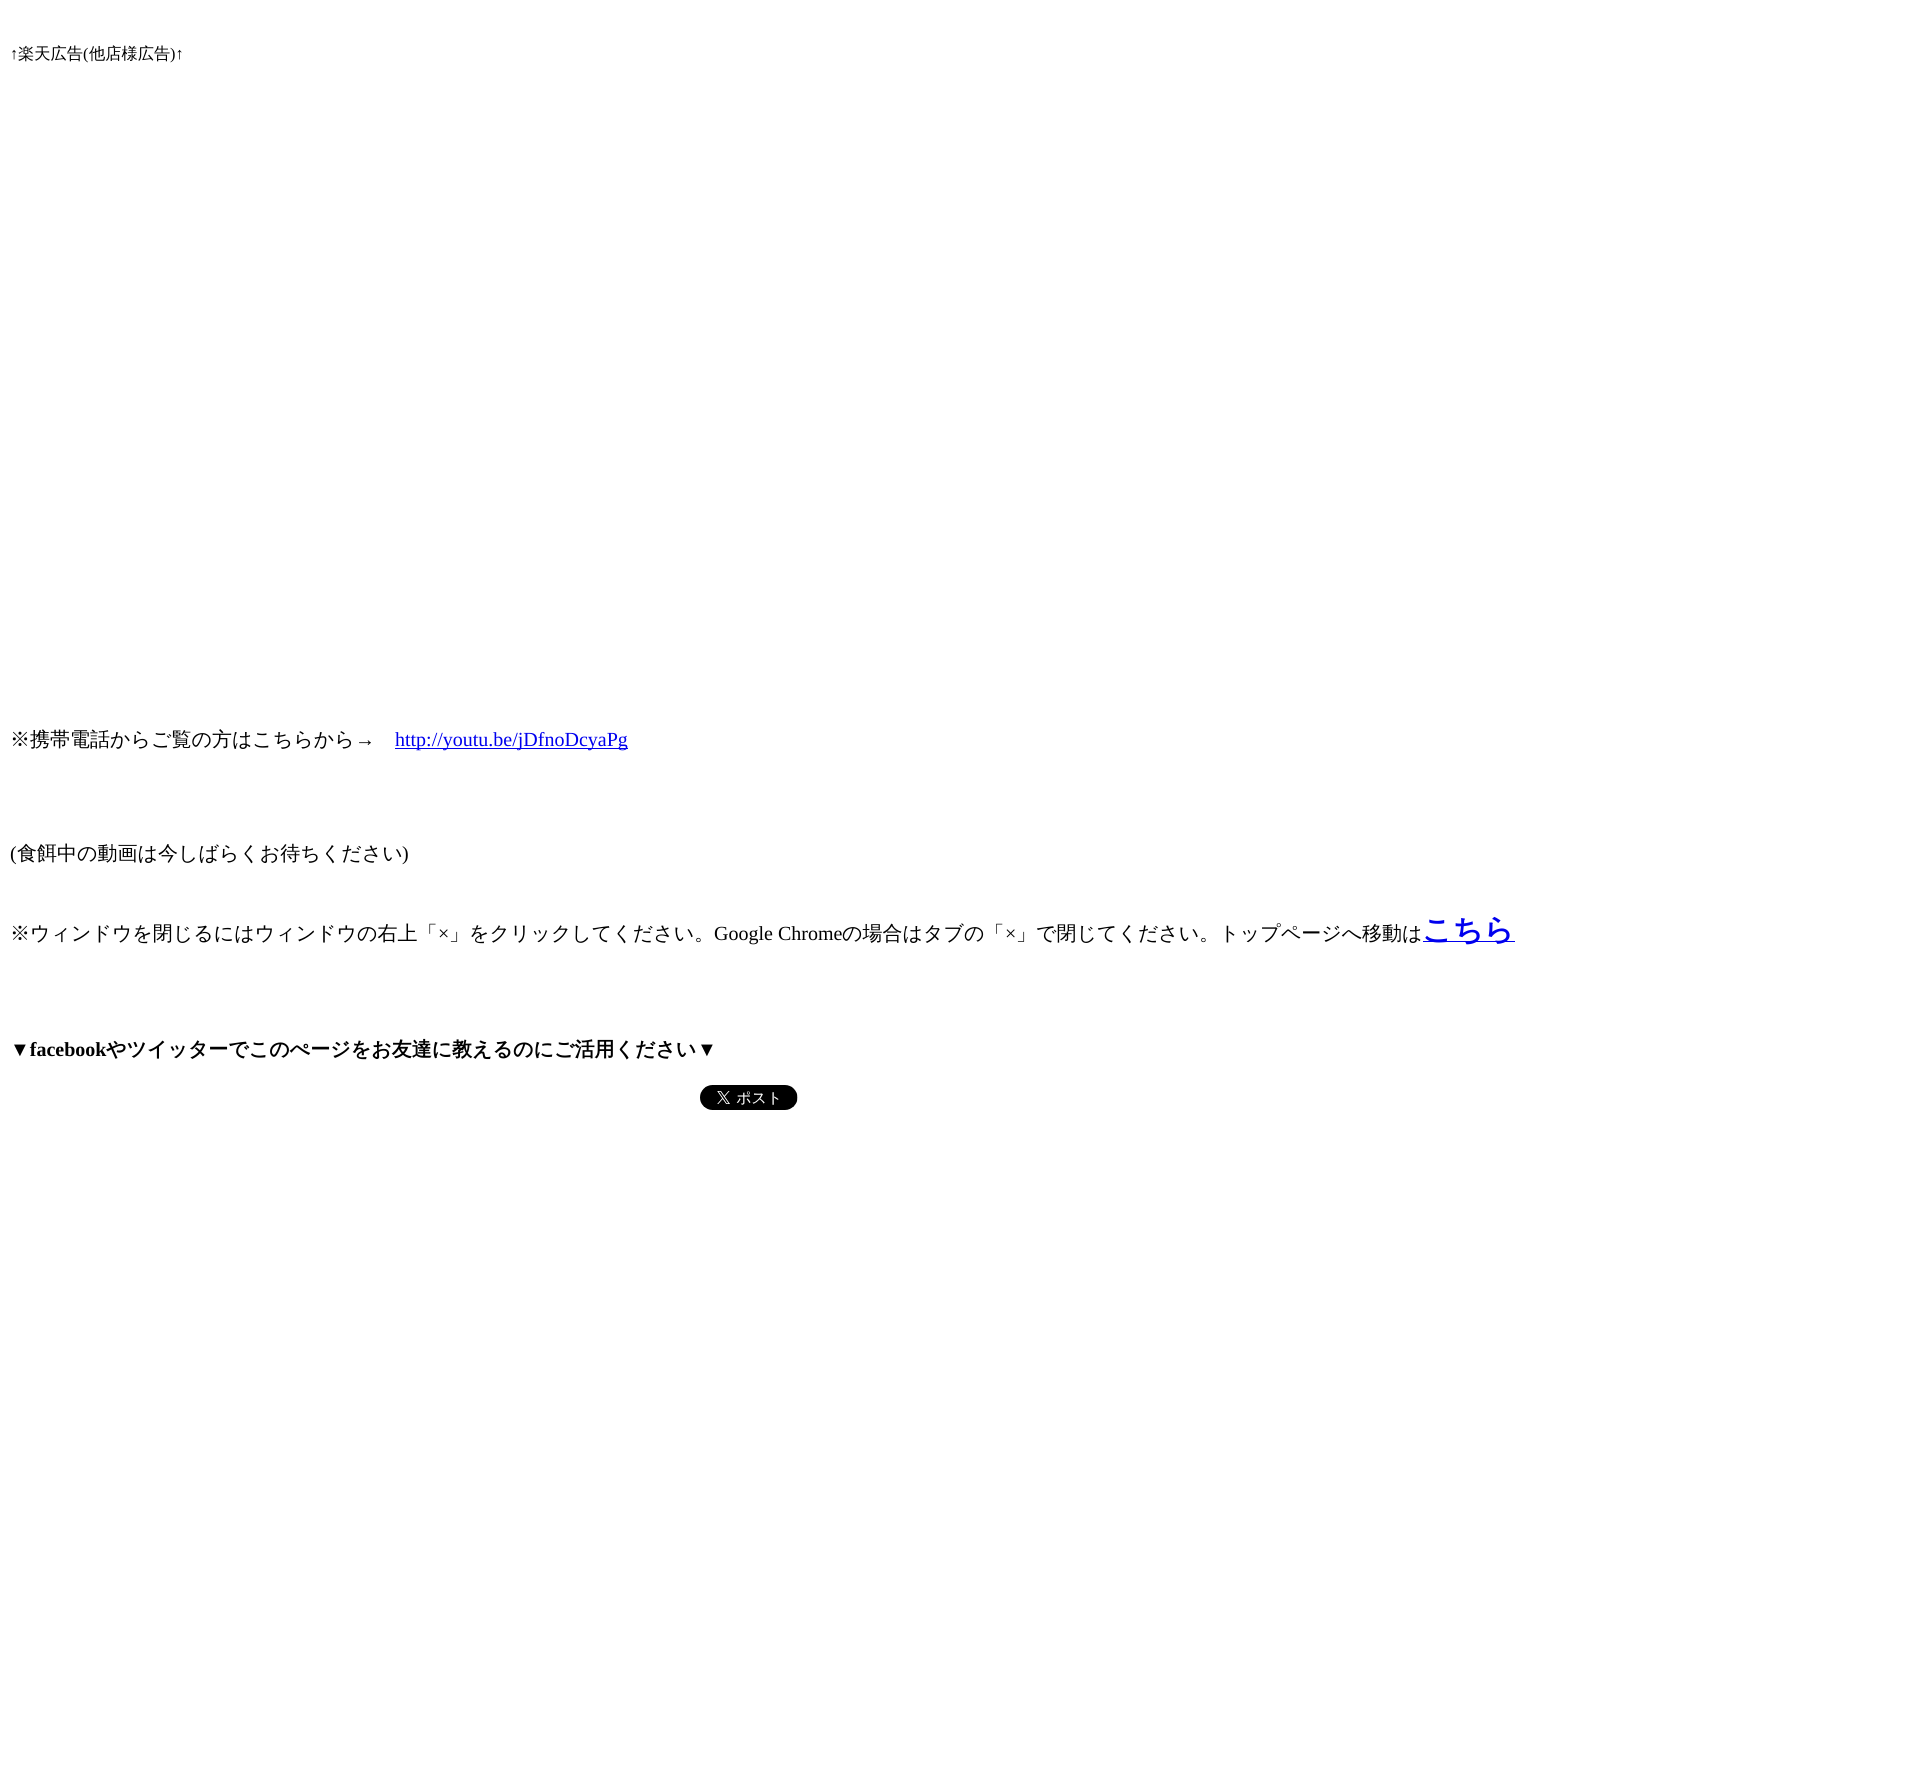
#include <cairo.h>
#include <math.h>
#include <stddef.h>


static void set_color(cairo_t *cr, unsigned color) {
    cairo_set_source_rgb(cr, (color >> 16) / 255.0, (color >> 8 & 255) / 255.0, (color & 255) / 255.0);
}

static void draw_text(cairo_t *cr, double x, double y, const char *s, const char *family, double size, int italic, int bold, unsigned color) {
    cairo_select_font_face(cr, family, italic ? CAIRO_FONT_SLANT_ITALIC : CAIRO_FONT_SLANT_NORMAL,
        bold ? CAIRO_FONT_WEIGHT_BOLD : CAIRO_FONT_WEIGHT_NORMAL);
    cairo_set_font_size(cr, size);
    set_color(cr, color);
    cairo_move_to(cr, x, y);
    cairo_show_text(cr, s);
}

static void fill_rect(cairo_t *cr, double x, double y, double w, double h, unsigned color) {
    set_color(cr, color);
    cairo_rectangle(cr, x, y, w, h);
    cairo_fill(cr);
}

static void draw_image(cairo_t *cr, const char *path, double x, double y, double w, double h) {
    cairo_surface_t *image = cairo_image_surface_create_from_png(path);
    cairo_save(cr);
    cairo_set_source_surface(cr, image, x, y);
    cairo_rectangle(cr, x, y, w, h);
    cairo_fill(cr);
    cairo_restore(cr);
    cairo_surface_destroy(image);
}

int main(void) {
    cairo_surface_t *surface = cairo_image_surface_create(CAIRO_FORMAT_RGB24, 1930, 1785);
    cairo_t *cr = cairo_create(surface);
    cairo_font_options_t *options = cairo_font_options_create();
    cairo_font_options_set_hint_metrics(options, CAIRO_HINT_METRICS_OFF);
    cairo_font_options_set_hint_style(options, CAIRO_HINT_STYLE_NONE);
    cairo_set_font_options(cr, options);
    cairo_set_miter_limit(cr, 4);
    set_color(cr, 0xFFFFFF);
    cairo_paint(cr);
    draw_text(cr, 10, 59, "↑", "Liberation Serif", 16.25, 0, 0, 0x000000);
    draw_text(cr, 18, 59, "楽天広告", "WenQuanYi Zen Hei Medium", 16.25, 0, 0, 0x000000);
    draw_text(cr, 83, 59, "(", "Liberation Serif", 16.25, 0, 0, 0x000000);
    draw_text(cr, 89, 59, "他店様広告", "WenQuanYi Zen Hei Medium", 16.25, 0, 0, 0x000000);
    draw_text(cr, 170, 59, ")↑", "Liberation Serif", 16.25, 0, 0, 0x000000);
    draw_text(cr, 10, 746, "※携帯電話からご覧の方はこちらから", "WenQuanYi Zen Hei Medium", 20, 0, 0, 0x000000);
    draw_text(cr, 355, 746, "→", "Liberation Serif", 20, 0, 0, 0x000000);
    fill_rect(cr, 395, 748, 233, 1, 0x0000EE);
    draw_text(cr, 395, 746, "http://youtu.be/jDfnoDcyaPg", "Liberation Serif", 20, 0, 0, 0x0000EE);
    draw_text(cr, 10, 860, "(", "Liberation Serif", 20, 0, 0, 0x000000);
    draw_text(cr, 17, 860, "食餌中の動画は今しばらくお待ちください", "WenQuanYi Zen Hei Medium", 20, 0, 0, 0x000000);
    draw_text(cr, 402, 860, ")", "Liberation Serif", 20, 0, 0, 0x000000);
    draw_text(cr, 10, 940, "※ウィンドウを閉じるにはウィンドウの右上「", "WenQuanYi Zen Hei Medium", 20, 0, 0, 0x000000);
    draw_text(cr, 438, 940, "×", "Liberation Serif", 20, 0, 0, 0x000000);
    draw_text(cr, 449, 940, "」をクリックしてください。", "WenQuanYi Zen Hei Medium", 20, 0, 0, 0x000000);
    draw_text(cr, 714, 940, "Google Chrome", "Liberation Serif", 20, 0, 0, 0x000000);
    draw_text(cr, 842, 940, "の場合はタブの「", "WenQuanYi Zen Hei Medium", 20, 0, 0, 0x000000);
    draw_text(cr, 1005, 940, "×", "Liberation Serif", 20, 0, 0, 0x000000);
    draw_text(cr, 1016, 940, "」で閉じてください。トップページへ移動は", "WenQuanYi Zen Hei Medium", 20, 0, 0, 0x000000);
    fill_rect(cr, 1423, 941, 92, 1, 0x0000EE);
    draw_text(cr, 1422, 940, "こちら", "WenQuanYi Zen Hei", 30, 0, 1, 0x0000EE);
    draw_text(cr, 10, 1056, "▼facebook", "Liberation Serif", 20, 0, 1, 0x000000);
    draw_text(cr, 106, 1056, "やツイッターでこのぺージをお友達に教えるのにご活用ください", "WenQuanYi Zen Hei", 20, 0, 1, 0x000000);
    draw_text(cr, 697, 1056, "▼", "Liberation Serif", 20, 0, 1, 0x000000);
    draw_image(cr, "assets/img1.png", 700, 1085, 98, 25);
    cairo_surface_write_to_png(surface, "output.png");
    cairo_font_options_destroy(options);
    cairo_destroy(cr);
    cairo_surface_destroy(surface);
    return 0;
}
